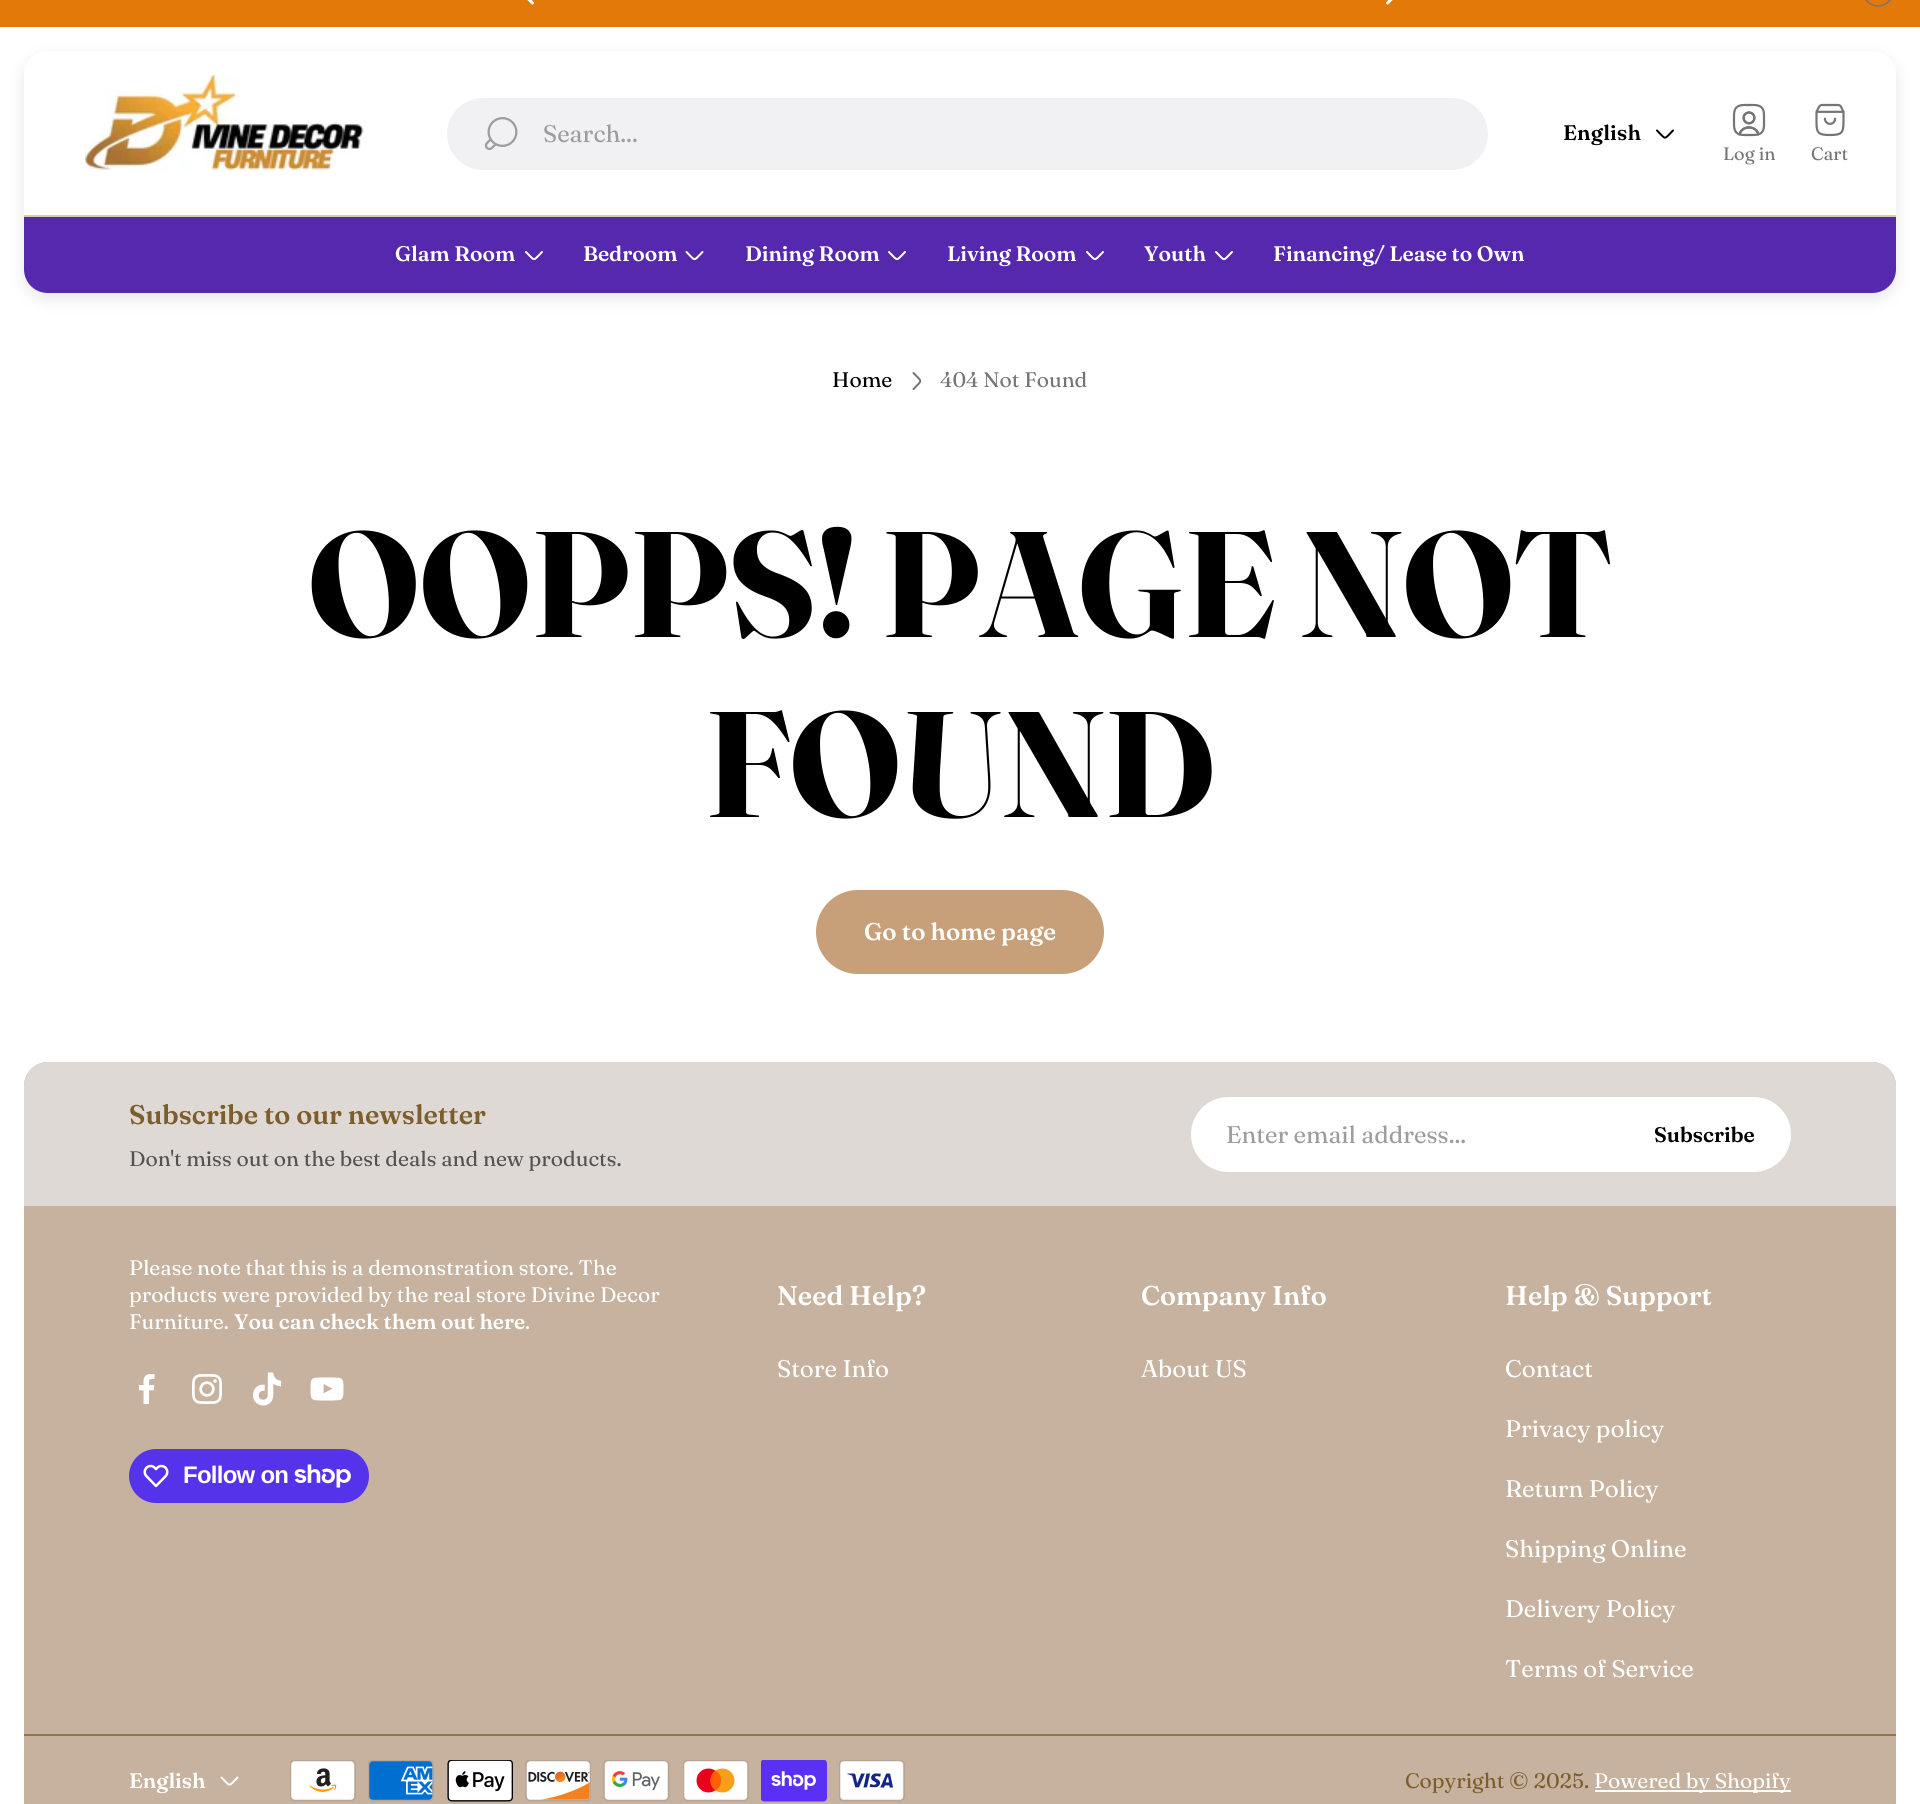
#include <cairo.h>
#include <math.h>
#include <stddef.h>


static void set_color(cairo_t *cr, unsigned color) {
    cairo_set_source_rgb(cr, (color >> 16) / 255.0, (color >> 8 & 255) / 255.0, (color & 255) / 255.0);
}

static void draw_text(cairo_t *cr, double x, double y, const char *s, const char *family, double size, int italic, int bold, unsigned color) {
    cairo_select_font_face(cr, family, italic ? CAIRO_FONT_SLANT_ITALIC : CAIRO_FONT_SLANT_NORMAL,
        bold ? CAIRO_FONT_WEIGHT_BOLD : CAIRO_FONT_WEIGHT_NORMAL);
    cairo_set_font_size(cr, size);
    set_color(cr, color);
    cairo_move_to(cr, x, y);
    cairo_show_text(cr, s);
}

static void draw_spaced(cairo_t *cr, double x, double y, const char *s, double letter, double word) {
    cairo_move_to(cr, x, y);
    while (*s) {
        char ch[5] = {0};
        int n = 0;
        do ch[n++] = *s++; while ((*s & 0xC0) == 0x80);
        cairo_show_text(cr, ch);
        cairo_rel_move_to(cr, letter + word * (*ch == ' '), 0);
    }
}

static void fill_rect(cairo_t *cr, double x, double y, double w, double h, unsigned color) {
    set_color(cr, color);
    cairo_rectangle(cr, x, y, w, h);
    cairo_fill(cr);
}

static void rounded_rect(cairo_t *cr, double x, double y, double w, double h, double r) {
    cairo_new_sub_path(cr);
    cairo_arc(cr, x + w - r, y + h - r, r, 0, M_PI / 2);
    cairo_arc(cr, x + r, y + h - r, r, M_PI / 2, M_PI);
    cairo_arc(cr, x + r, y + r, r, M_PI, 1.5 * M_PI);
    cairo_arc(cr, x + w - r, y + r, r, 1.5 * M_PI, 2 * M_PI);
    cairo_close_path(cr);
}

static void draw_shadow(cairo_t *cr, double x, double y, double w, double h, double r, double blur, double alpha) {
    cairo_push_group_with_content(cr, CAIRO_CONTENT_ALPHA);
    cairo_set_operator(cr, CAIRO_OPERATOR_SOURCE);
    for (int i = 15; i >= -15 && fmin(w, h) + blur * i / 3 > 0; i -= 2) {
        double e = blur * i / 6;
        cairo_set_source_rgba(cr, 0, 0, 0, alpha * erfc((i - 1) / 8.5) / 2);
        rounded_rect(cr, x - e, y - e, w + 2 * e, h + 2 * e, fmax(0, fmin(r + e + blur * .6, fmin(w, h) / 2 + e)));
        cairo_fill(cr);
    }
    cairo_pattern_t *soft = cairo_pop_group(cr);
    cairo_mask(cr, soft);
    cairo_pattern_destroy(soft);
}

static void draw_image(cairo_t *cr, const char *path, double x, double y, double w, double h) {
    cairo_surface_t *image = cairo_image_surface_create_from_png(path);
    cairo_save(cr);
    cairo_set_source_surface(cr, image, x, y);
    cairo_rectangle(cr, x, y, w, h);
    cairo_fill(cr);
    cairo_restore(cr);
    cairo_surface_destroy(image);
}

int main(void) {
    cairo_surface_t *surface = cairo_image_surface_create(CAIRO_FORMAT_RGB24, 1920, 1804);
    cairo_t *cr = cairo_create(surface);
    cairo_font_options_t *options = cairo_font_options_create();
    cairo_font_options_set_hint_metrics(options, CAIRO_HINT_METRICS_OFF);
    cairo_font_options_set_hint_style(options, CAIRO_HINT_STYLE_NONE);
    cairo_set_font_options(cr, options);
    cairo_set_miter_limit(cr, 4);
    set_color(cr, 0xFFFFFF);
    cairo_paint(cr);
    fill_rect(cr, 0, 0, 1920, 27, 0xE37908);
    cairo_new_path(cr);
    cairo_move_to(cr, 532.5, 3);
    cairo_curve_to(cr, 518.5, -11, 518.5, -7, 532.5, -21);
    set_color(cr, 0xFFFFFF);
    cairo_set_line_width(cr, 3);
    cairo_set_line_cap(cr, CAIRO_LINE_CAP_ROUND);
    cairo_set_line_join(cr, CAIRO_LINE_JOIN_ROUND);
    cairo_stroke(cr);
    cairo_new_path(cr);
    cairo_move_to(cr, 1387.5, 3);
    cairo_curve_to(cr, 1401.5, -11, 1401.5, -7, 1387.5, -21);
    cairo_stroke(cr);
    draw_image(cr, "assets/img1.png", 1865, 0, 26, 7);
    set_color(cr, 0x000000);
    draw_shadow(cr, 24, 57, 1872, 242, 24, 8, 0.1);
    set_color(cr, 0xFFFFFF);
    cairo_new_path(cr);
    cairo_move_to(cr, 48, 51);
    cairo_line_to(cr, 1872, 51);
    cairo_curve_to(cr, 1885.5, 51, 1896, 61.5, 1896, 75);
    cairo_line_to(cr, 1896, 215);
    cairo_line_to(cr, 24, 215);
    cairo_line_to(cr, 24, 75);
    cairo_curve_to(cr, 24, 61.5, 34.5, 51, 48, 51);
    cairo_close_path(cr);
    cairo_fill(cr);
    draw_image(cr, "assets/img2.png", 83, 75, 282, 97);
    set_color(cr, 0xF1F1F3);
    rounded_rect(cr, 447, 98, 1041, 72, 36);
    cairo_fill(cr);
    draw_image(cr, "assets/img3.png", 484, 117, 34, 34);
    draw_text(cr, 543, 142, "Search...", "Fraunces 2", 24, 0, 0, 0x9D9D9D);
    cairo_select_font_face(cr, "Fraunces 2 SemiBold", CAIRO_FONT_SLANT_NORMAL, CAIRO_FONT_WEIGHT_NORMAL);
    cairo_set_font_size(cr, 21);
    set_color(cr, 0x000000);
    draw_spaced(cr, 1563, 140, "English", 0.25, 0);
    cairo_new_path(cr);
    cairo_move_to(cr, 1673, 130.5);
    cairo_curve_to(cr, 1663.5, 140, 1666.5, 140, 1657, 130.5);
    cairo_set_line_width(cr, 2);
    cairo_stroke(cr);
    draw_image(cr, "assets/img4.png", 1732, 103, 34, 34);
    draw_text(cr, 1723, 160, "Log in", "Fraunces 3", 18, 0, 0, 0x757575);
    draw_image(cr, "assets/img5.png", 1815, 103, 30, 34);
    draw_text(cr, 1811, 160, "Cart", "Fraunces 3", 18, 0, 0, 0x757575);
    set_color(cr, 0x5528AE);
    cairo_new_path(cr);
    cairo_move_to(cr, 24, 215);
    cairo_line_to(cr, 1896, 215);
    cairo_line_to(cr, 1896, 269);
    cairo_curve_to(cr, 1896, 282.5, 1885.5, 293, 1872, 293);
    cairo_line_to(cr, 48, 293);
    cairo_curve_to(cr, 34.5, 293, 24, 282.5, 24, 269);
    cairo_close_path(cr);
    cairo_fill(cr);
    fill_rect(cr, 24, 215, 1872, 2, 0xD1CBB9);
    draw_text(cr, 395, 261, "Glam Room", "Fraunces 2 SemiBold", 21, 0, 0, 0xFFFFFF);
    cairo_new_path(cr);
    cairo_move_to(cr, 542, 252);
    cairo_curve_to(cr, 532.5, 261.5, 535.5, 261.5, 526, 252);
    cairo_stroke(cr);
    draw_text(cr, 583, 261, "Bedroom", "Fraunces 2 SemiBold", 21, 0, 0, 0xFFFFFF);
    cairo_new_path(cr);
    cairo_move_to(cr, 702.5, 252);
    cairo_curve_to(cr, 693, 261.5, 696, 261.5, 686.5, 252);
    cairo_stroke(cr);
    draw_text(cr, 745, 261, "Dining Room", "Fraunces 2 SemiBold", 21, 0, 0, 0xFFFFFF);
    cairo_new_path(cr);
    cairo_move_to(cr, 905, 252);
    cairo_curve_to(cr, 895.5, 261.5, 898.5, 261.5, 889, 252);
    cairo_stroke(cr);
    draw_text(cr, 947, 261, "Living Room", "Fraunces 2 SemiBold", 21, 0, 0, 0xFFFFFF);
    cairo_new_path(cr);
    cairo_move_to(cr, 1103, 252);
    cairo_curve_to(cr, 1093.5, 261.5, 1096.5, 261.5, 1087, 252);
    cairo_stroke(cr);
    draw_text(cr, 1144, 261, "Youth", "Fraunces 2 SemiBold", 21, 0, 0, 0xFFFFFF);
    cairo_new_path(cr);
    cairo_move_to(cr, 1232, 252);
    cairo_curve_to(cr, 1222.5, 261.5, 1225.5, 261.5, 1216, 252);
    cairo_stroke(cr);
    draw_text(cr, 1273, 261, "Financing/ Lease to Own", "Fraunces 2 SemiBold", 21, 0, 0, 0xFFFFFF);
    draw_text(cr, 832, 387, "Home", "Fraunces", 21, 0, 0, 0x000000);
    cairo_new_path(cr);
    cairo_move_to(cr, 913.5, 389);
    cairo_curve_to(cr, 922.5, 379.5, 922.5, 382.5, 913.5, 373);
    set_color(cr, 0x757575);
    cairo_stroke(cr);
    draw_text(cr, 940, 387, "404 Not Found", "Fraunces", 21, 0, 0, 0x757575);
    draw_text(cr, 308, 637, "OOPPS! PAGE NOT", "Fraunces", 150, 0, 1, 0x000000);
    draw_text(cr, 705, 817, "FOUND", "Fraunces", 150, 0, 1, 0x000000);
    set_color(cr, 0xC79F78);
    rounded_rect(cr, 816, 890, 288, 84, 42);
    cairo_fill(cr);
    draw_text(cr, 864, 940, "Go to home page", "Fraunces 3 SemiBold", 24, 0, 0, 0xFFFFFF);
    set_color(cr, 0xC6B29E);
    rounded_rect(cr, 24, 1062, 1872, 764, 24);
    cairo_fill(cr);
    set_color(cr, 0xDFD9D5);
    cairo_new_path(cr);
    cairo_move_to(cr, 48, 1062);
    cairo_line_to(cr, 1872, 1062);
    cairo_curve_to(cr, 1885.5, 1062, 1896, 1072.5, 1896, 1086);
    cairo_line_to(cr, 1896, 1206);
    cairo_line_to(cr, 24, 1206);
    cairo_line_to(cr, 24, 1086);
    cairo_curve_to(cr, 24, 1072.5, 34.5, 1062, 48, 1062);
    cairo_close_path(cr);
    cairo_fill(cr);
    draw_text(cr, 129, 1124, "Subscribe to our newsletter", "Fraunces SemiBold", 27, 0, 0, 0x7C5E2C);
    draw_text(cr, 129, 1166, "Don't miss out on the best deals and new products.", "Fraunces", 21, 0, 0, 0x535353);
    set_color(cr, 0xFFFFFF);
    rounded_rect(cr, 1192, 1098, 598, 73, 36.5);
    cairo_fill_preserve(cr);
    cairo_set_line_cap(cr, CAIRO_LINE_CAP_BUTT);
    cairo_set_line_join(cr, CAIRO_LINE_JOIN_MITER);
    cairo_stroke(cr);
    draw_text(cr, 1226, 1143, "Enter email address...", "Fraunces 2", 24, 0, 0, 0x9D9D9D);
    draw_text(cr, 1654, 1142, "Subscribe", "Fraunces 2 SemiBold", 21, 0, 0, 0x000000);
    draw_text(cr, 129, 1275, "Please note that this is a demonstration store. The", "Fraunces", 21, 0, 0, 0xFFFFFF);
    draw_text(cr, 129, 1302, "products were provided by the real store Divine Decor", "Fraunces", 21, 0, 0, 0xFFFFFF);
    draw_text(cr, 129, 1329, "Furniture.", "Fraunces", 21, 0, 0, 0xFFFFFF);
    draw_text(cr, 234, 1329, "You can check them out here", "Fraunces 2 SemiBold", 21, 0, 0, 0xFFFFFF);
    draw_text(cr, 525, 1329, ".", "Fraunces", 21, 0, 0, 0xFFFFFF);
    draw_image(cr, "assets/img6.png", 138, 1374, 17, 30);
    draw_image(cr, "assets/img7.png", 192, 1374, 30, 30);
    draw_image(cr, "assets/img8.png", 252, 1372, 30, 34);
    draw_image(cr, "assets/img9.png", 310, 1377, 34, 24);
    set_color(cr, 0x5433EB);
    rounded_rect(cr, 129, 1449, 240, 54, 27);
    cairo_fill(cr);
    draw_image(cr, "assets/img10.png", 143, 1464, 26, 24);
    cairo_select_font_face(cr, "Liberation Sans", CAIRO_FONT_SLANT_NORMAL, CAIRO_FONT_WEIGHT_BOLD);
    cairo_set_font_size(cr, 24);
    set_color(cr, 0xFFFFFF);
    draw_spaced(cr, 183, 1483, "Follow on", -0.75, 0);
    draw_image(cr, "assets/img11.png", 294, 1464, 57, 24);
    draw_text(cr, 777, 1305, "Need Help?", "Fraunces SemiBold", 27, 0, 0, 0xFFFFFF);
    draw_text(cr, 777, 1377, "Store Info", "Fraunces 2", 24, 0, 0, 0xFFFFFF);
    draw_text(cr, 1141, 1305, "Company Info", "Fraunces SemiBold", 27, 0, 0, 0xFFFFFF);
    draw_text(cr, 1141, 1377, "About US", "Fraunces 2", 24, 0, 0, 0xFFFFFF);
    draw_text(cr, 1505, 1305, "Help & Support", "Fraunces SemiBold", 27, 0, 0, 0xFFFFFF);
    draw_text(cr, 1505, 1377, "Contact", "Fraunces 2", 24, 0, 0, 0xFFFFFF);
    draw_text(cr, 1505, 1437, "Privacy policy", "Fraunces 2", 24, 0, 0, 0xFFFFFF);
    draw_text(cr, 1505, 1497, "Return Policy", "Fraunces 2", 24, 0, 0, 0xFFFFFF);
    draw_text(cr, 1505, 1557, "Shipping Online", "Fraunces 2", 24, 0, 0, 0xFFFFFF);
    draw_text(cr, 1505, 1617, "Delivery Policy", "Fraunces 2", 24, 0, 0, 0xFFFFFF);
    draw_text(cr, 1505, 1677, "Terms of Service", "Fraunces 2", 24, 0, 0, 0xFFFFFF);
    fill_rect(cr, 24, 1734, 1872, 2, 0x917649);
    draw_text(cr, 129, 1788, "English", "Fraunces 2 SemiBold", 21, 0, 0, 0xFFFFFF);
    cairo_new_path(cr);
    cairo_move_to(cr, 237.5, 1777.5);
    cairo_curve_to(cr, 228, 1787, 231, 1787, 221.5, 1777.5);
    cairo_set_line_cap(cr, CAIRO_LINE_CAP_ROUND);
    cairo_set_line_join(cr, CAIRO_LINE_JOIN_ROUND);
    cairo_stroke(cr);
    draw_image(cr, "assets/img12.png", 290, 1760, 66, 42);
    draw_image(cr, "assets/img13.png", 368, 1760, 66, 42);
    draw_image(cr, "assets/img14.png", 447, 1760, 66, 42);
    draw_image(cr, "assets/img15.png", 525, 1760, 66, 42);
    draw_image(cr, "assets/img16.png", 603, 1760, 67, 42);
    draw_image(cr, "assets/img17.png", 683, 1760, 66, 42);
    draw_image(cr, "assets/img18.png", 761, 1760, 66, 42);
    draw_image(cr, "assets/img19.png", 839, 1760, 66, 42);
    draw_text(cr, 1405, 1788, "Copyright © 2025.", "Fraunces", 21, 0, 0, 0x7C5E2C);
    fill_rect(cr, 1595, 1790, 196, 2, 0xFFFFFF);
    draw_text(cr, 1594, 1788, "Powered by Shopify", "Fraunces", 21, 0, 0, 0xFFFFFF);
    cairo_surface_write_to_png(surface, "output.png");
    cairo_font_options_destroy(options);
    cairo_destroy(cr);
    cairo_surface_destroy(surface);
    return 0;
}
